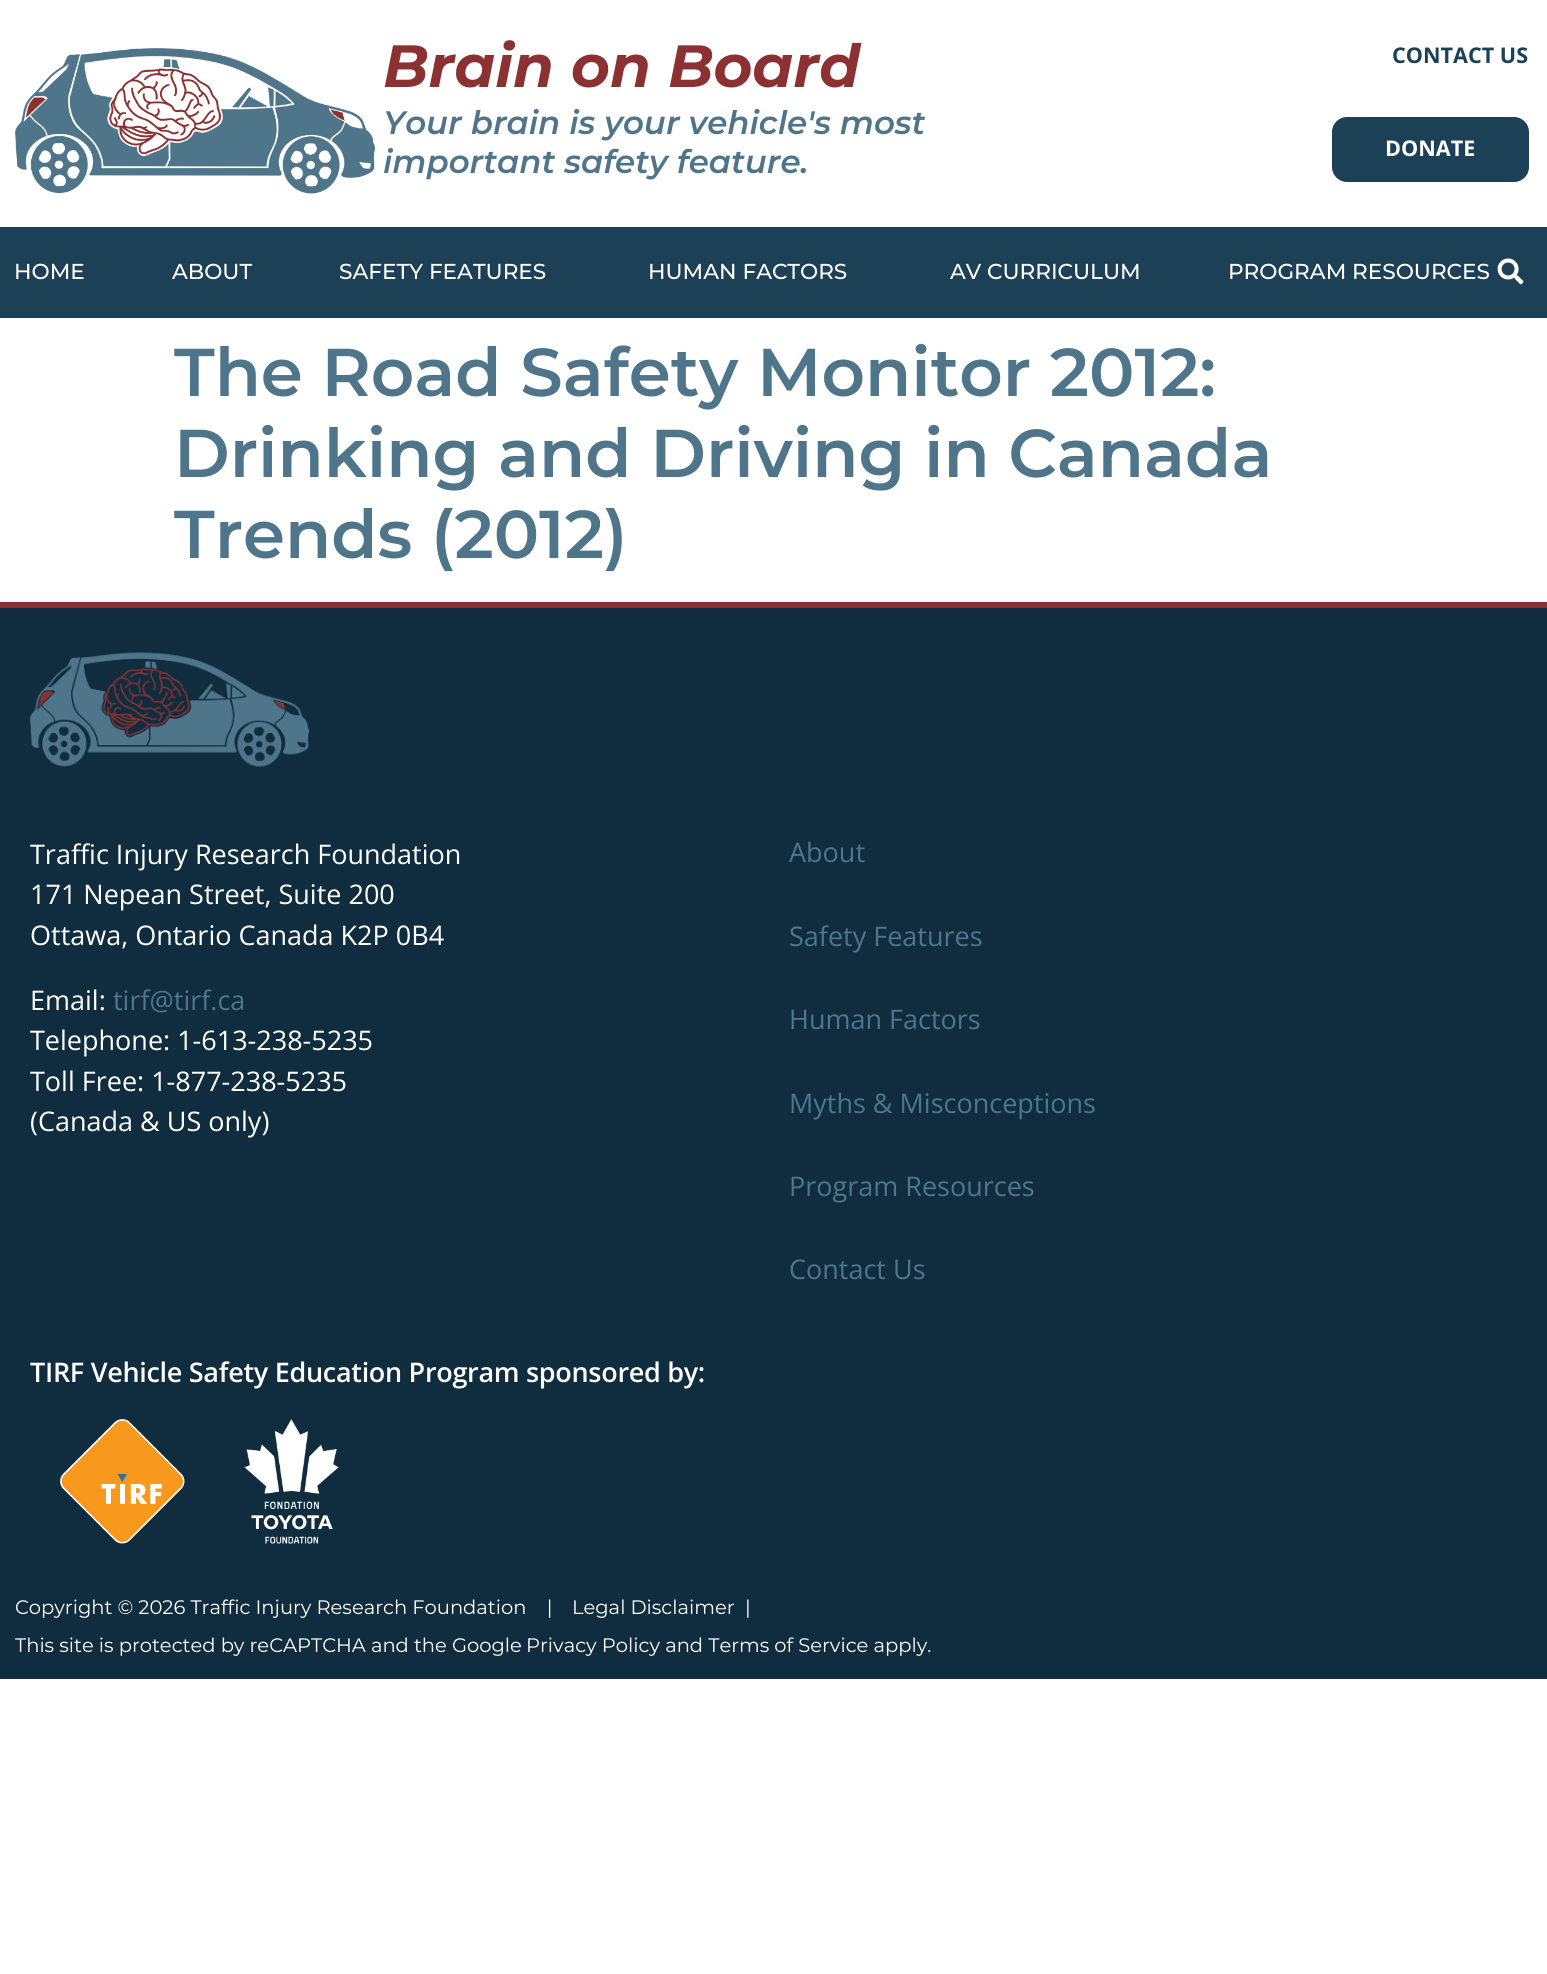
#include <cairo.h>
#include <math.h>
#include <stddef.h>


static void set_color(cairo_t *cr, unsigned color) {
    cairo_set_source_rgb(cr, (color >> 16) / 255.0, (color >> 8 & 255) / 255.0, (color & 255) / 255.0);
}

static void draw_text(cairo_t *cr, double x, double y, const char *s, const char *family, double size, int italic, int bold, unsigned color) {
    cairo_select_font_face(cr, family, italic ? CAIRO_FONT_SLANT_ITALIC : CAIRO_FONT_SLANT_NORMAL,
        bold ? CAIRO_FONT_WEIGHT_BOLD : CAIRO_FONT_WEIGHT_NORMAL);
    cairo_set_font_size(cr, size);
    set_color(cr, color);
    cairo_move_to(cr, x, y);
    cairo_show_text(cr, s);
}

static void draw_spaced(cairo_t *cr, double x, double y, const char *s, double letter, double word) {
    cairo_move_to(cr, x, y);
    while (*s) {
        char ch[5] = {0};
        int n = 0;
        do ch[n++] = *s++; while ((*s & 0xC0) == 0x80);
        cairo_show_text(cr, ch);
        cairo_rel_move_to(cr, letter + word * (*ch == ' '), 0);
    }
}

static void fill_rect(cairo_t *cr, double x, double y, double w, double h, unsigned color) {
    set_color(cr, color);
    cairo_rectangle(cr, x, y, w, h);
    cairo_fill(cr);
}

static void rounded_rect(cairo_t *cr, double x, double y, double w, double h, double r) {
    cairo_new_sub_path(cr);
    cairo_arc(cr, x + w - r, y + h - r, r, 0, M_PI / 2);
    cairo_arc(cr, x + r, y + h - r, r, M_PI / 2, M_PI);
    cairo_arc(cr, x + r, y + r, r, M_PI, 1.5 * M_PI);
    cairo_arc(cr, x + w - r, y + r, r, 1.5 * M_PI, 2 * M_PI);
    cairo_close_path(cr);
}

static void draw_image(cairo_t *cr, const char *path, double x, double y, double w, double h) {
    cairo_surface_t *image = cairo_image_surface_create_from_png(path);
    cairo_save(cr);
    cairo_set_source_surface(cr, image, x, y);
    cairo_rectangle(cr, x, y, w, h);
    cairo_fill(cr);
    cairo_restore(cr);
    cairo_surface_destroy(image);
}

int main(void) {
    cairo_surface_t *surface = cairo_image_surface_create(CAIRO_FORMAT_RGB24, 1547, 1974);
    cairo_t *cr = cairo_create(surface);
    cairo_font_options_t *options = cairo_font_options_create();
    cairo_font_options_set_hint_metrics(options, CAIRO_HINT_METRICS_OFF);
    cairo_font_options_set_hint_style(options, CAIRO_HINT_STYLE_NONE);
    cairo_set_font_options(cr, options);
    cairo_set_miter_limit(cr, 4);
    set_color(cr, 0xFFFFFF);
    cairo_paint(cr);
    draw_image(cr, "assets/img1.png", 15, 48, 360, 146);
    draw_text(cr, 383, 87, "Brain on Board", "Montserrat", 59.5, 1, 1, 0x8B3131);
    draw_text(cr, 383, 134, "Your brain is your vehicle's most", "Montserrat SemiBold", 32.4, 1, 0, 0x4F758A);
    draw_text(cr, 383, 173, "important safety feature.", "Montserrat SemiBold", 32.4, 1, 0, 0x4F758A);
    draw_text(cr, 1392, 63, "CONTACT US", "Open Sans", 21.6, 0, 1, 0x1C4156);
    rounded_rect(cr, 1332, 117, 197, 65, 15);
    cairo_fill(cr);
    draw_text(cr, 1385, 156, "DONATE", "Open Sans", 21.6, 0, 1, 0xFFFFFF);
    fill_rect(cr, 0, 227, 1547, 91, 0x1C4156);
    draw_text(cr, 14, 279, "HOME", "Montserrat Medium", 21.6, 0, 0, 0xFFFFFF);
    draw_text(cr, 172, 279, "ABOUT", "Montserrat Medium", 21.6, 0, 0, 0xFFFFFF);
    draw_text(cr, 339, 279, "SAFETY FEATURES", "Montserrat Medium", 21.6, 0, 0, 0xFFFFFF);
    draw_text(cr, 648, 279, "HUMAN FACTORS", "Montserrat Medium", 21.6, 0, 0, 0xFFFFFF);
    draw_text(cr, 950, 279, "AV CURRICULUM", "Montserrat Medium", 21.6, 0, 0, 0xFFFFFF);
    draw_text(cr, 1228, 279, "PROGRAM RESOURCES", "Montserrat Medium", 21.6, 0, 0, 0xFFFFFF);
    draw_image(cr, "assets/img2.png", 1497, 258, 27, 27);
    draw_text(cr, 174, 396, "The Road Safety Monitor 2012:", "Montserrat SemiBold", 67.5, 0, 0, 0x4F758A);
    draw_text(cr, 174, 477, "Drinking and Driving in Canada", "Montserrat SemiBold", 67.5, 0, 0, 0x4F758A);
    draw_text(cr, 174, 558, "Trends (2012)", "Montserrat SemiBold", 67.5, 0, 0, 0x4F758A);
    fill_rect(cr, 0, 608, 1547, 1071, 0x0F2D3E);
    fill_rect(cr, 0, 602, 1547, 6, 0x8B3131);
    draw_image(cr, "assets/img3.png", 30, 652, 279, 115);
    draw_text(cr, 30, 864, "Traffic Injury Research Foundation", "Open Sans", 27, 0, 0, 0xFFFFFF);
    draw_text(cr, 30, 904, "171 Nepean Street, Suite 200", "Open Sans", 27, 0, 0, 0xFFFFFF);
    draw_text(cr, 30, 945, "Ottawa, Ontario Canada K2P 0B4", "Open Sans", 27, 0, 0, 0xFFFFFF);
    draw_text(cr, 30, 1010, "Email:", "Open Sans", 27, 0, 0, 0xFFFFFF);
    draw_text(cr, 113, 1010, "tirf@tirf.ca", "Open Sans", 27, 0, 0, 0x4F758A);
    draw_text(cr, 30, 1050, "Telephone: 1-613-238-5235", "Open Sans", 27, 0, 0, 0xFFFFFF);
    draw_text(cr, 30, 1091, "Toll Free: 1-877-238-5235", "Open Sans", 27, 0, 0, 0xFFFFFF);
    draw_text(cr, 30, 1131, "(Canada & US only)", "Open Sans", 27, 0, 0, 0xFFFFFF);
    draw_text(cr, 789, 862, "About", "Open Sans", 27, 0, 0, 0x4F758A);
    draw_text(cr, 789, 946, "Safety Features", "Open Sans", 27, 0, 0, 0x4F758A);
    draw_text(cr, 789, 1029, "Human Factors", "Open Sans", 27, 0, 0, 0x4F758A);
    draw_text(cr, 789, 1113, "Myths & Misconceptions", "Open Sans", 27, 0, 0, 0x4F758A);
    draw_text(cr, 789, 1196, "Program Resources", "Open Sans", 27, 0, 0, 0x4F758A);
    draw_text(cr, 789, 1279, "Contact Us", "Open Sans", 27, 0, 0, 0x4F758A);
    cairo_select_font_face(cr, "Open Sans SemiBold", CAIRO_FONT_SLANT_NORMAL, CAIRO_FONT_WEIGHT_NORMAL);
    set_color(cr, 0xFFFFFF);
    draw_spaced(cr, 30, 1382, "TIRF Vehicle Safety Education Program sponsored by:", -0.3, 0);
    draw_image(cr, "assets/img4.png", 60, 1419, 125, 125);
    draw_image(cr, "assets/img5.png", 244, 1419, 95, 125);
    draw_text(cr, 15, 1614, "Copyright © 2026 Traffic Injury Research Foundation    |", "Montserrat", 19.5, 0, 0, 0xFFFFFF);
    draw_text(cr, 572, 1614, "Legal Disclaimer", "Montserrat", 19.5, 0, 0, 0xFFFFFF);
    draw_text(cr, 745, 1614, "|", "Montserrat", 19.5, 0, 0, 0xFFFFFF);
    draw_text(cr, 15, 1652, "This site is protected by reCAPTCHA and the Google", "Montserrat", 19.5, 0, 0, 0xFFFFFF);
    draw_text(cr, 526, 1652, "Privacy Policy and Terms of Service apply.", "Montserrat", 19.5, 0, 0, 0xFFFFFF);
    cairo_surface_write_to_png(surface, "output.png");
    cairo_font_options_destroy(options);
    cairo_destroy(cr);
    cairo_surface_destroy(surface);
    return 0;
}
